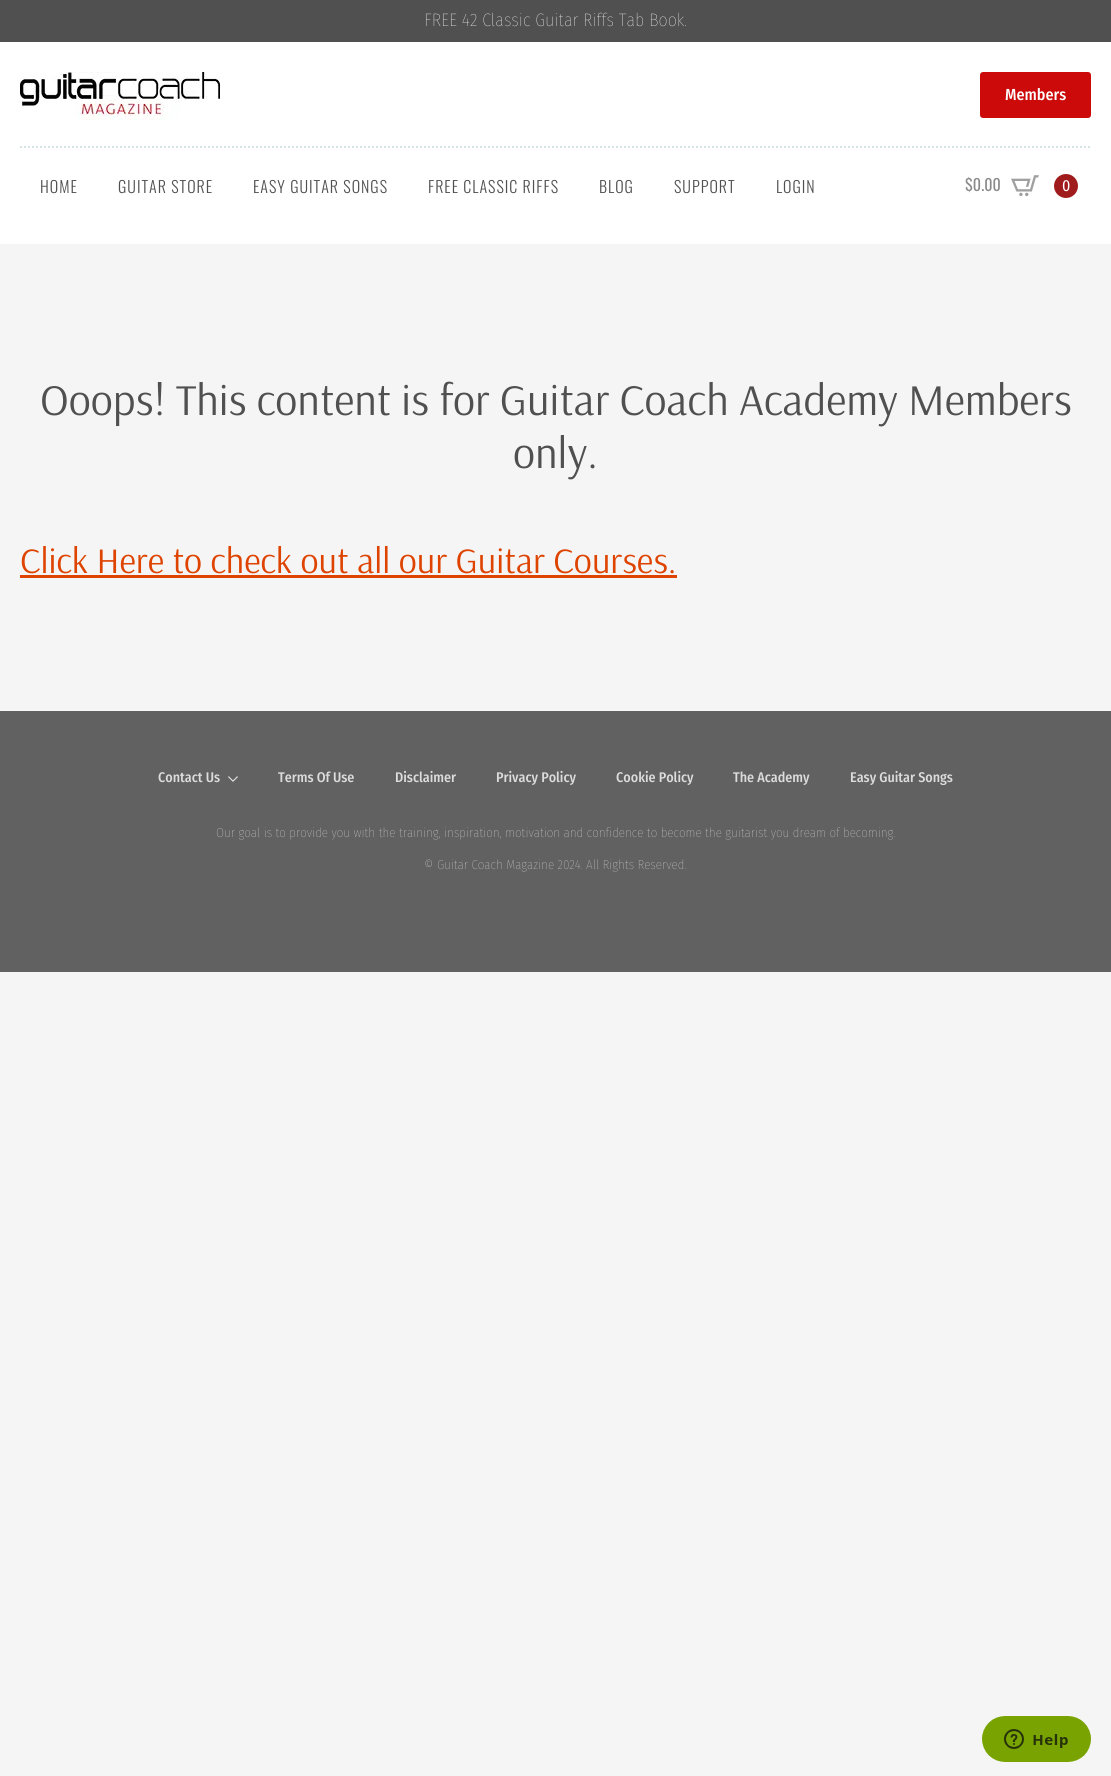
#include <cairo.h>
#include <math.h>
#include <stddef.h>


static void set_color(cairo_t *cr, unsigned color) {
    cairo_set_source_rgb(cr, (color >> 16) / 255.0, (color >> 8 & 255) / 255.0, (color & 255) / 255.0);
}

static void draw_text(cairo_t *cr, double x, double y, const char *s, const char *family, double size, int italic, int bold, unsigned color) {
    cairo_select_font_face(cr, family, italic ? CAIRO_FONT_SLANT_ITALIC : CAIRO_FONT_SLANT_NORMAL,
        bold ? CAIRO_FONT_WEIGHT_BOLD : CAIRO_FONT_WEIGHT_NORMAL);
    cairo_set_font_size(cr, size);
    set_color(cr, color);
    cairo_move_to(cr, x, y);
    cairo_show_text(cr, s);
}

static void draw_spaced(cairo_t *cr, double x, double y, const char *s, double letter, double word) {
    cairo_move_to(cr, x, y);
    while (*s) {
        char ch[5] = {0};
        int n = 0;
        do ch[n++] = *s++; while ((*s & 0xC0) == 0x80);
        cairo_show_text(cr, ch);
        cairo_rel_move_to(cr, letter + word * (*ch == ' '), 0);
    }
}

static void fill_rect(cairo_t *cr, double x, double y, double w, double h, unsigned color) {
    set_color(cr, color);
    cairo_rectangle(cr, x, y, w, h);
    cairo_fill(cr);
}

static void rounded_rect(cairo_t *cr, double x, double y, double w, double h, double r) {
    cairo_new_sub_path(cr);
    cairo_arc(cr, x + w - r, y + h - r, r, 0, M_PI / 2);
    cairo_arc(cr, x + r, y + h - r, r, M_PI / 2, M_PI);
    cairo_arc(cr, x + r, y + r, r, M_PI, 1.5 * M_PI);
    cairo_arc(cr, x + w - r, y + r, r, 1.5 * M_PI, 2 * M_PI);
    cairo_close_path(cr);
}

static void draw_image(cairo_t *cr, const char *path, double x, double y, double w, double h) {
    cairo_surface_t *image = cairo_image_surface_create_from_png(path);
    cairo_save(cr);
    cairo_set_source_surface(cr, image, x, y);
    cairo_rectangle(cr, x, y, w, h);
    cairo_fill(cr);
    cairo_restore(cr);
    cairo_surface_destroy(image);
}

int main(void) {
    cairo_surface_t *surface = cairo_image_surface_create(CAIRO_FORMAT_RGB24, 1111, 1776);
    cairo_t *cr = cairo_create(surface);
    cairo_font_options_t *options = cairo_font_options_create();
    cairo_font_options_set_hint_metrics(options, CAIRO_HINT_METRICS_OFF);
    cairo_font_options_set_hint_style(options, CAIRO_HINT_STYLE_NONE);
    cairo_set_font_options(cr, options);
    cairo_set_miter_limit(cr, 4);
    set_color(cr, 0xF5F5F5);
    cairo_paint(cr);
    fill_rect(cr, 0, 0, 1111, 42, 0x505050);
    draw_text(cr, 424, 26, "FREE 42 Classic Guitar Riffs Tab Book.", "Fira Sans Condensed ExtraLight", 18, 0, 0, 0xF5F5F5);
    fill_rect(cr, 0, 42, 1111, 202, 0xFFFFFF);
    draw_image(cr, "assets/img1.png", 20, 72, 200, 48);
    set_color(cr, 0xCC0A0A);
    rounded_rect(cr, 980, 72, 111, 46, 3);
    cairo_fill(cr);
    draw_text(cr, 1005, 100, "Members", "Fira Sans Condensed Medium", 16, 0, 0, 0xFFFFFF);
    cairo_new_path(cr);
    cairo_move_to(cr, 20, 147);
    cairo_line_to(cr, 1091, 147);
    set_color(cr, 0xD6E4E6);
    cairo_set_dash(cr, (double[]){2, 2}, 2, 0);
    cairo_stroke(cr);
    cairo_select_font_face(cr, "Oswald Light", CAIRO_FONT_SLANT_NORMAL, CAIRO_FONT_WEIGHT_NORMAL);
    set_color(cr, 0x505050);
    draw_spaced(cr, 40, 193, "HOME", 1, 0);
    draw_spaced(cr, 118, 193, "GUITAR STORE", 1, 0);
    draw_spaced(cr, 253, 193, "EASY GUITAR SONGS", 1, 0);
    draw_spaced(cr, 428, 193, "FREE CLASSIC RIFFS", 1, 0);
    draw_spaced(cr, 599, 193, "BLOG", 1, 0);
    draw_spaced(cr, 674, 193, "SUPPORT", 1, 0);
    draw_spaced(cr, 776, 193, "LOGIN", 1, 0);
    draw_text(cr, 965, 191, "$0.00", "Oswald", 16, 0, 0, 0x8A8A8A);
    draw_image(cr, "assets/img2.png", 1011, 175, 28, 22);
    set_color(cr, 0xA01C1C);
    cairo_arc(cr, 1066, 186, 12, 0, 2 * M_PI);
    cairo_fill(cr);
    draw_text(cr, 1062, 191, "0", "Fira Sans Condensed", 16, 0, 0, 0xFFFFFF);
    draw_text(cr, 40, 415, "Ooops! This content is for Guitar Coach Academy Members", "Arsenal", 44, 0, 0, 0x505050);
    draw_text(cr, 513, 468, "only.", "Arsenal", 44, 0, 0, 0x505050);
    draw_text(cr, 20, 573, "Click Here to check out all our Guitar Courses.", "Arsenal", 36, 0, 0, 0xDE4300);
    fill_rect(cr, 20, 575, 657, 3, 0xDE4300);
    fill_rect(cr, 0, 711, 1111, 261, 0x616161);
    draw_text(cr, 158, 782, "Contact Us", "Fira Sans Condensed Medium", 14, 0, 0, 0xDCDCDC);
    draw_image(cr, "assets/img3.png", 228, 776, 10, 6);
    draw_text(cr, 278, 782, "Terms Of Use", "Fira Sans Condensed Medium", 14, 0, 0, 0xDCDCDC);
    draw_text(cr, 395, 782, "Disclaimer", "Fira Sans Condensed Medium", 14, 0, 0, 0xDCDCDC);
    draw_text(cr, 496, 782, "Privacy Policy", "Fira Sans Condensed Medium", 14, 0, 0, 0xDCDCDC);
    draw_text(cr, 616, 782, "Cookie Policy", "Fira Sans Condensed Medium", 14, 0, 0, 0xDCDCDC);
    draw_text(cr, 733, 782, "The Academy", "Fira Sans Condensed Medium", 14, 0, 0, 0xDCDCDC);
    draw_text(cr, 850, 782, "Easy Guitar Songs", "Fira Sans Condensed Medium", 14, 0, 0, 0xDCDCDC);
    draw_text(cr, 216, 837, "Our goal is to provide you with the training, inspiration, motivation and confidence to become the guitarist you dream of becoming.", "Fira Sans Condensed ExtraLight", 13, 0, 0, 0xDCDCDC);
    draw_text(cr, 424, 869, "© Guitar Coach Magazine 2024. All Rights Reserved.", "Fira Sans Condensed ExtraLight", 13, 0, 0, 0xDCDCDC);
    draw_image(cr, "assets/img4.png", 982, 1716, 109, 46);
    cairo_surface_write_to_png(surface, "output.png");
    cairo_font_options_destroy(options);
    cairo_destroy(cr);
    cairo_surface_destroy(surface);
    return 0;
}
